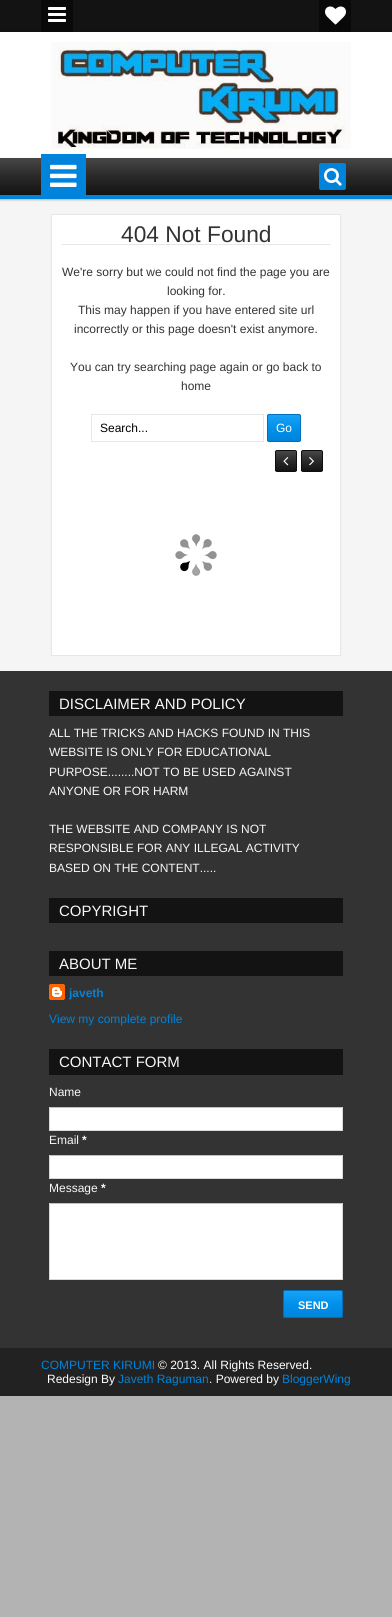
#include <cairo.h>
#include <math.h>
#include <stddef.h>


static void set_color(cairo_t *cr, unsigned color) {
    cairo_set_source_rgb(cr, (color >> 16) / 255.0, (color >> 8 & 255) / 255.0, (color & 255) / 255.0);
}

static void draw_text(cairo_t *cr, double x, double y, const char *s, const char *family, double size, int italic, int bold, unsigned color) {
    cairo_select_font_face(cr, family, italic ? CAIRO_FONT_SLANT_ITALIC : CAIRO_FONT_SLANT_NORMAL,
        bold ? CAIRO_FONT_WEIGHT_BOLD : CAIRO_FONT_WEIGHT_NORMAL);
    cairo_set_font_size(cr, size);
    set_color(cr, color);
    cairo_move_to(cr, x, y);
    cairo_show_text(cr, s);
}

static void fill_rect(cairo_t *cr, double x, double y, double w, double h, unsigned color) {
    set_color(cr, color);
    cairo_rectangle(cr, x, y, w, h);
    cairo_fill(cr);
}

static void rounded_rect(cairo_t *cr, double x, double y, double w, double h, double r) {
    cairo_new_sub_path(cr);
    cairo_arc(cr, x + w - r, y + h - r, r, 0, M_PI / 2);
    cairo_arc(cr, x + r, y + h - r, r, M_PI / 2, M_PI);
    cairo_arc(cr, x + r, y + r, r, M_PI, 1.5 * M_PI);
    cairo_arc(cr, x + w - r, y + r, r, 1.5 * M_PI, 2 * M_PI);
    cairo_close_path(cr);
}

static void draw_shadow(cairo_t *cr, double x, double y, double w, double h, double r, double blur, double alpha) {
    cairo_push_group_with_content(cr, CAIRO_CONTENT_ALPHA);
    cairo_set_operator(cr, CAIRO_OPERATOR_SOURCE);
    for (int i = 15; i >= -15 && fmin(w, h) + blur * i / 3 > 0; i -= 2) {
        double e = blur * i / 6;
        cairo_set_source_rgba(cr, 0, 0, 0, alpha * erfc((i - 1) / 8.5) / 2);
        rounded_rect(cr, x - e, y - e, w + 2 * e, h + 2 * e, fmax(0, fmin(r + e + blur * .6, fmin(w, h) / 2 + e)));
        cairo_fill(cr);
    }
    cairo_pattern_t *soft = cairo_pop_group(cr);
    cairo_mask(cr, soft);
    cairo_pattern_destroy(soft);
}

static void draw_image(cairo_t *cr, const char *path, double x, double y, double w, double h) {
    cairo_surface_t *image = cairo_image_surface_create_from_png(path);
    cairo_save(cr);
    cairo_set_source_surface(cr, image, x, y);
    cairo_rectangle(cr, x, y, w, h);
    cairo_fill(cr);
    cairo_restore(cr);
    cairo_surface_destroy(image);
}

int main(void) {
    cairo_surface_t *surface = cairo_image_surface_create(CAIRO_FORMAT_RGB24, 392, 1617);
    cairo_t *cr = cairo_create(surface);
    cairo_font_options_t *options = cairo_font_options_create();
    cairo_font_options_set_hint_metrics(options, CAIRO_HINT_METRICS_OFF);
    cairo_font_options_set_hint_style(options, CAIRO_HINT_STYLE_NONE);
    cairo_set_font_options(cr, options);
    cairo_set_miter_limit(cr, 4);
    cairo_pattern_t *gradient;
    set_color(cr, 0xB3B3B3);
    cairo_paint(cr);
    fill_rect(cr, 0, 199, 392, 472, 0xF5F5F5);
    fill_rect(cr, 0, 0, 392, 31, 0x131313);
    fill_rect(cr, 0, 31, 392, 1, 0x111111);
    fill_rect(cr, 41, 0, 32, 32, 0x090909);
    draw_image(cr, "assets/img1.png", 48, 7, 18, 15);
    fill_rect(cr, 319, 0, 32, 32, 0x090909);
    draw_image(cr, "assets/img2.png", 325, 6, 21, 19);
    fill_rect(cr, 0, 32, 392, 126, 0xFFFFFF);
    draw_image(cr, "assets/img3.png", 51, 42, 300, 107);
    set_color(cr, 0x000000);
    draw_shadow(cr, 0, 159, 392, 41, 0, 1, 0.26);
    gradient = cairo_pattern_create_linear(196, 158, 196, 195);
    cairo_pattern_add_color_stop_rgba(gradient, 0, 0.278, 0.278, 0.278, 1);
    cairo_pattern_add_color_stop_rgba(gradient, 0.5, 0.161, 0.161, 0.161, 1);
    cairo_pattern_add_color_stop_rgba(gradient, 1, 0.075, 0.075, 0.075, 1);
    cairo_set_source(cr, gradient);
    cairo_pattern_destroy(gradient);
    cairo_rectangle(cr, 0, 158, 392, 37);
    cairo_fill(cr);
    fill_rect(cr, 41, 154, 45, 41, 0x0083DA);
    draw_image(cr, "assets/img4.png", 50, 164, 27, 23);
    rounded_rect(cr, 319, 163, 27, 27, 2);
    cairo_fill(cr);
    draw_image(cr, "assets/img5.png", 324, 168, 18, 18);
    fill_rect(cr, 0, 195, 392, 4, 0x0083DA);
    set_color(cr, 0xFFFFFF);
    cairo_rectangle(cr, 51.5, 214.5, 289, 441);
    cairo_fill_preserve(cr);
    set_color(cr, 0xE6E6E6);
    cairo_set_line_width(cr, 1);
    cairo_stroke(cr);
    fill_rect(cr, 62, 244, 268, 1, 0xE6E6E6);
    draw_text(cr, 121, 242, "404 Not Found", "Liberation Sans", 22.75, 0, 0, 0x333333);
    draw_text(cr, 62, 276, "We're sorry but we could not find the page you are", "Liberation Sans", 12, 0, 0, 0x333333);
    draw_text(cr, 167, 295, "looking for.", "Liberation Sans", 12, 0, 0, 0x333333);
    draw_text(cr, 78, 314, "This may happen if you have entered site url", "Liberation Sans", 12, 0, 0, 0x333333);
    draw_text(cr, 74, 333, "incorrectly or this page doesn't exist anymore.", "Liberation Sans", 12, 0, 0, 0x333333);
    draw_text(cr, 70, 371, "You can try searching page again or go back to", "Liberation Sans", 12, 0, 0, 0x333333);
    draw_text(cr, 181, 390, "home", "Liberation Sans", 12, 0, 0, 0x333333);
    cairo_rectangle(cr, 91.5, 414.5, 172, 27);
    set_color(cr, 0xE7E7E7);
    cairo_stroke(cr);
    draw_text(cr, 100, 432, "Search...", "Liberation Sans", 12, 0, 0, 0x000000);
    cairo_save(cr);
    rounded_rect(cr, 267, 414, 34, 28, 2);
    cairo_clip(cr);
    gradient = cairo_pattern_create_linear(284, 415, 284, 441);
    cairo_pattern_add_color_stop_rgba(gradient, 0, 0.094, 0.635, 0.969, 1);
    cairo_pattern_add_color_stop_rgba(gradient, 0.5, 0, 0.569, 0.922, 1);
    cairo_pattern_add_color_stop_rgba(gradient, 1, 0, 0.514, 0.855, 1);
    cairo_set_source(cr, gradient);
    cairo_pattern_destroy(gradient);
    cairo_rectangle(cr, 267, 415, 34, 26);
    cairo_fill(cr);
    cairo_restore(cr);
    rounded_rect(cr, 267.5, 414.5, 33, 27, 1.5);
    set_color(cr, 0x006EB8);
    cairo_stroke(cr);
    draw_text(cr, 276, 432, "Go", "Liberation Sans", 12, 0, 0, 0xFFFFFF);
    draw_image(cr, "assets/img6.png", 175, 534, 42, 42);
    cairo_save(cr);
    rounded_rect(cr, 275, 450, 22, 22, 2);
    cairo_clip(cr);
    gradient = cairo_pattern_create_linear(286, 451, 286, 471);
    cairo_pattern_add_color_stop_rgba(gradient, 0, 0.278, 0.278, 0.278, 1);
    cairo_pattern_add_color_stop_rgba(gradient, 0.5, 0.161, 0.161, 0.161, 1);
    cairo_pattern_add_color_stop_rgba(gradient, 1, 0.075, 0.075, 0.075, 1);
    cairo_set_source(cr, gradient);
    cairo_pattern_destroy(gradient);
    cairo_rectangle(cr, 275, 451, 22, 20);
    cairo_fill(cr);
    cairo_restore(cr);
    rounded_rect(cr, 275.5, 450.5, 21, 21, 1.5);
    set_color(cr, 0x0E0E0E);
    cairo_stroke(cr);
    draw_image(cr, "assets/img7.png", 283, 457, 6, 9);
    cairo_save(cr);
    rounded_rect(cr, 301, 450, 22, 22, 2);
    cairo_clip(cr);
    gradient = cairo_pattern_create_linear(312, 451, 312, 471);
    cairo_pattern_add_color_stop_rgba(gradient, 0, 0.278, 0.278, 0.278, 1);
    cairo_pattern_add_color_stop_rgba(gradient, 0.5, 0.161, 0.161, 0.161, 1);
    cairo_pattern_add_color_stop_rgba(gradient, 1, 0.075, 0.075, 0.075, 1);
    cairo_set_source(cr, gradient);
    cairo_pattern_destroy(gradient);
    cairo_rectangle(cr, 301, 451, 22, 20);
    cairo_fill(cr);
    cairo_restore(cr);
    rounded_rect(cr, 301.5, 450.5, 21, 21, 1.5);
    cairo_stroke(cr);
    draw_image(cr, "assets/img8.png", 309, 457, 5, 9);
    fill_rect(cr, 0, 671, 392, 677, 0x333333);
    fill_rect(cr, 49, 691, 294, 25, 0x131313);
    draw_text(cr, 59, 709, "DISCLAIMER AND POLICY", "Liberation Sans", 15, 0, 0, 0xF8F8F8);
    draw_text(cr, 49, 737, "ALL THE TRICKS AND HACKS FOUND IN THIS", "Liberation Sans", 12, 0, 0, 0xF8F8F8);
    draw_text(cr, 49, 756, "WEBSITE IS ONLY FOR EDUCATIONAL", "Liberation Sans", 12, 0, 0, 0xF8F8F8);
    draw_text(cr, 49, 776, "PURPOSE........NOT TO BE USED AGAINST", "Liberation Sans", 12, 0, 0, 0xF8F8F8);
    draw_text(cr, 49, 795, "ANYONE OR FOR HARM", "Liberation Sans", 12, 0, 0, 0xF8F8F8);
    draw_text(cr, 49, 833, "THE WEBSITE AND COMPANY IS NOT", "Liberation Sans", 12, 0, 0, 0xF8F8F8);
    draw_text(cr, 49, 852, "RESPONSIBLE FOR ANY ILLEGAL ACTIVITY", "Liberation Sans", 12, 0, 0, 0xF8F8F8);
    draw_text(cr, 49, 872, "BASED ON THE CONTENT.....", "Liberation Sans", 12, 0, 0, 0xF8F8F8);
    fill_rect(cr, 49, 898, 294, 25, 0x131313);
    draw_text(cr, 59, 916, "COPYRIGHT", "Liberation Sans", 15, 0, 0, 0xF8F8F8);
    fill_rect(cr, 49, 951, 294, 25, 0x131313);
    draw_text(cr, 59, 969, "ABOUT ME", "Liberation Sans", 15, 0, 0, 0xF8F8F8);
    draw_image(cr, "assets/img9.png", 49, 984, 16, 16);
    draw_text(cr, 69, 997, "javeth", "Liberation Sans", 12, 0, 1, 0x0083DA);
    draw_text(cr, 49, 1023, "View my complete profile", "Liberation Sans", 12, 0, 0, 0x0083DA);
    fill_rect(cr, 49, 1049, 294, 26, 0x131313);
    draw_text(cr, 59, 1067, "CONTACT FORM", "Liberation Sans", 15, 0, 0, 0xF8F8F8);
    draw_text(cr, 49, 1096, "Name", "Liberation Sans", 12, 0, 0, 0xF8F8F8);
    fill_rect(cr, 50, 1108, 292, 22, 0xFFFFFF);
    fill_rect(cr, 49, 1107, 294, 1, 0xC0C0C0);
    fill_rect(cr, 342, 1107, 1, 24, 0xD9D9D9);
    fill_rect(cr, 49, 1130, 294, 1, 0xD9D9D9);
    fill_rect(cr, 49, 1107, 1, 24, 0xD9D9D9);
    draw_text(cr, 49, 1144, "Email", "Liberation Sans", 12, 0, 0, 0xF8F8F8);
    draw_text(cr, 82, 1144, "*", "Liberation Sans", 12, 0, 1, 0xF8F8F8);
    fill_rect(cr, 50, 1156, 292, 22, 0xFFFFFF);
    fill_rect(cr, 49, 1155, 294, 1, 0xC0C0C0);
    fill_rect(cr, 342, 1155, 1, 24, 0xD9D9D9);
    fill_rect(cr, 49, 1178, 294, 1, 0xD9D9D9);
    fill_rect(cr, 49, 1155, 1, 24, 0xD9D9D9);
    draw_text(cr, 49, 1192, "Message", "Liberation Sans", 12, 0, 0, 0xF8F8F8);
    draw_text(cr, 101, 1192, "*", "Liberation Sans", 12, 0, 1, 0xF8F8F8);
    fill_rect(cr, 50, 1204, 292, 75, 0xFFFFFF);
    fill_rect(cr, 49, 1203, 294, 1, 0xC0C0C0);
    fill_rect(cr, 342, 1203, 1, 77, 0xD9D9D9);
    fill_rect(cr, 49, 1279, 294, 1, 0xD9D9D9);
    fill_rect(cr, 49, 1203, 1, 77, 0xD9D9D9);
    cairo_save(cr);
    rounded_rect(cr, 283, 1290, 60, 28, 2);
    cairo_clip(cr);
    gradient = cairo_pattern_create_linear(313, 1291, 313, 1317);
    cairo_pattern_add_color_stop_rgba(gradient, 0, 0.094, 0.635, 0.969, 1);
    cairo_pattern_add_color_stop_rgba(gradient, 0.5, 0, 0.569, 0.922, 1);
    cairo_pattern_add_color_stop_rgba(gradient, 1, 0, 0.514, 0.855, 1);
    cairo_set_source(cr, gradient);
    cairo_pattern_destroy(gradient);
    cairo_rectangle(cr, 283, 1291, 60, 26);
    cairo_fill(cr);
    cairo_restore(cr);
    rounded_rect(cr, 283.5, 1290.5, 59, 27, 1.5);
    set_color(cr, 0x006EB8);
    cairo_stroke(cr);
    draw_text(cr, 298, 1309, "SEND", "Liberation Sans", 11, 0, 1, 0xFFFFFF);
    fill_rect(cr, 0, 1348, 392, 48, 0x222222);
    draw_text(cr, 41, 1369, "COMPUTER KIRUMI", "Liberation Sans", 12, 0, 0, 0x0083DA);
    draw_text(cr, 158, 1369, "© 2013. All Rights Reserved.", "Liberation Sans", 12, 0, 0, 0xFFFFFF);
    draw_text(cr, 47, 1383, "Redesign By", "Liberation Sans", 12, 0, 0, 0xFFFFFF);
    draw_text(cr, 118, 1383, "Javeth Raguman", "Liberation Sans", 12, 0, 0, 0x0083DA);
    draw_text(cr, 209, 1383, ". Powered by", "Liberation Sans", 12, 0, 0, 0xFFFFFF);
    draw_text(cr, 282, 1383, "BloggerWing", "Liberation Sans", 12, 0, 0, 0x0083DA);
    cairo_surface_write_to_png(surface, "output.png");
    cairo_font_options_destroy(options);
    cairo_destroy(cr);
    cairo_surface_destroy(surface);
    return 0;
}
